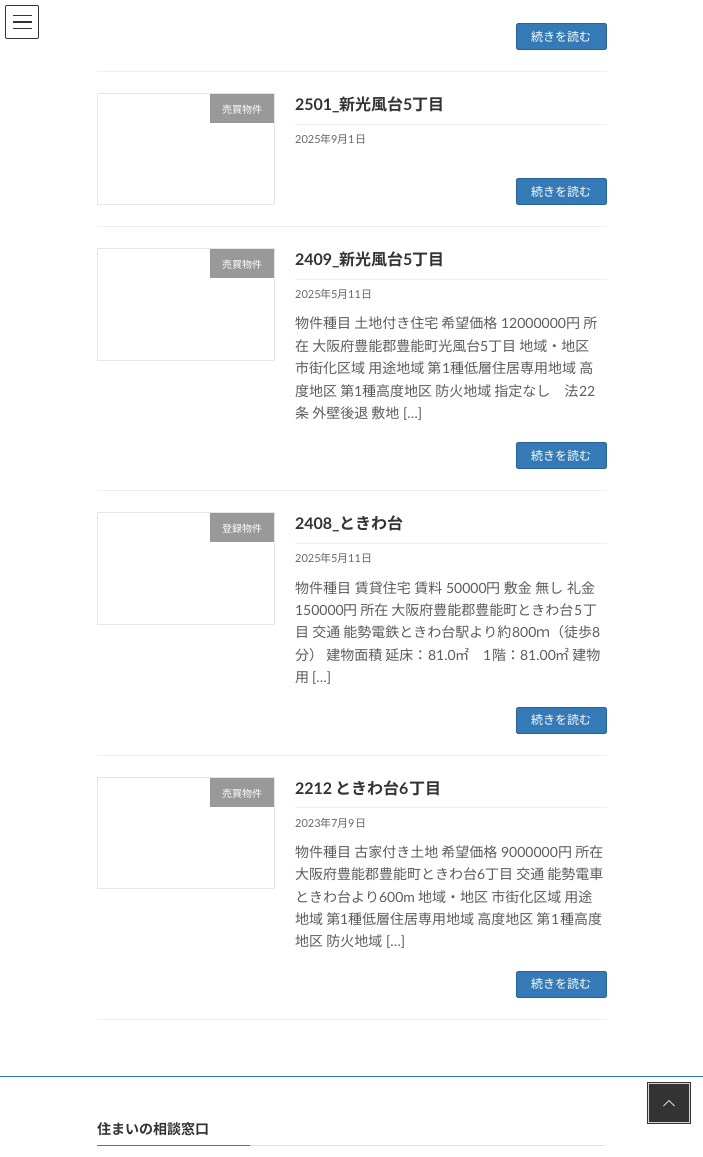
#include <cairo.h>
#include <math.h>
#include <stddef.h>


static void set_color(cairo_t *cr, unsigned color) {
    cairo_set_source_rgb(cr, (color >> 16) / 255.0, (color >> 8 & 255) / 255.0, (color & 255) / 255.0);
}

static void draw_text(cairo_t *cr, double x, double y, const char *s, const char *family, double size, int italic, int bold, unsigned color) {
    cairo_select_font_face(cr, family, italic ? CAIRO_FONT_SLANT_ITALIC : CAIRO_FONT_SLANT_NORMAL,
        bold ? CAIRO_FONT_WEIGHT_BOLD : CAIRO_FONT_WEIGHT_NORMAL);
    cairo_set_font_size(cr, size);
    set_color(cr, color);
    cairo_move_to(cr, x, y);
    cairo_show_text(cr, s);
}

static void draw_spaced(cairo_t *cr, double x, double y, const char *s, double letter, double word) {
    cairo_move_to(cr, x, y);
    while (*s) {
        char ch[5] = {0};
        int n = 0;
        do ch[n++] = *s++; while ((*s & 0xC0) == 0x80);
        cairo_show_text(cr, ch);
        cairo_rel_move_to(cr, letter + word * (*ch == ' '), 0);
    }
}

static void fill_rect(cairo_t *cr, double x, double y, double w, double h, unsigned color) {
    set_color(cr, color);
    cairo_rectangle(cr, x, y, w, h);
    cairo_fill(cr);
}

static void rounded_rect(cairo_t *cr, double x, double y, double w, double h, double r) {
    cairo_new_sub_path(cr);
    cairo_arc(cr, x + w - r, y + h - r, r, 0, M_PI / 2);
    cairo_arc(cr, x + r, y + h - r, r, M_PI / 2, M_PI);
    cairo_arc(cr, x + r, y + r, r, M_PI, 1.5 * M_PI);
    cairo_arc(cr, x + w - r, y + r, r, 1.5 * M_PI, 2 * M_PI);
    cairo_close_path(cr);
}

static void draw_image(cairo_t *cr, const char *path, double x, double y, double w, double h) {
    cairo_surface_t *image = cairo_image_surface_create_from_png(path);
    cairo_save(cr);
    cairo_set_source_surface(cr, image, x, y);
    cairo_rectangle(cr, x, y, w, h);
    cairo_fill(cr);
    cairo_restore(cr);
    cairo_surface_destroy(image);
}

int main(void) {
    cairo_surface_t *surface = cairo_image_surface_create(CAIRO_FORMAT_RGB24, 703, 1157);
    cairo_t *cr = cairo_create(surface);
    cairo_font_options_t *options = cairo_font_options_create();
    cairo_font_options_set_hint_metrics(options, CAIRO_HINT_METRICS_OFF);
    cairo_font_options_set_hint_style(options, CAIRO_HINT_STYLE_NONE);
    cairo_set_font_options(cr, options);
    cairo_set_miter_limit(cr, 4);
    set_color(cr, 0xFFFFFF);
    cairo_paint(cr);
    fill_rect(cr, 13, 15, 19, 1, 0x333333);
    fill_rect(cr, 13, 21, 19, 2, 0x333333);
    fill_rect(cr, 13, 28, 19, 1, 0x333333);
    rounded_rect(cr, 5.5, 5.5, 33, 33, 1.5);
    cairo_set_line_width(cr, 1);
    cairo_stroke(cr);
    fill_rect(cr, 97, 71, 510, 1, 0xF0F0F0);
    set_color(cr, 0x337AB7);
    rounded_rect(cr, 516.5, 23.5, 90, 26, 2);
    cairo_fill_preserve(cr);
    set_color(cr, 0x286192);
    cairo_stroke(cr);
    draw_text(cr, 531, 41, "続きを読む", "Noto Sans JP", 12, 0, 0, 0xFFFFFF);
    fill_rect(cr, 97, 226, 510, 1, 0xF0F0F0);
    cairo_rectangle(cr, 97.5, 93.5, 177, 111);
    set_color(cr, 0xE5E5E5);
    cairo_stroke(cr);
    fill_rect(cr, 210, 94, 64, 29, 0x999999);
    draw_text(cr, 222, 113, "売買物件", "Noto Sans JP", 10, 0, 0, 0xFFFFFF);
    fill_rect(cr, 295, 124, 312, 1, 0xF0F0F0);
    draw_text(cr, 295, 110, "2501_", "Lato", 16, 0, 1, 0x333333);
    draw_text(cr, 339, 110, "新光風台", "Noto Sans JP", 16, 0, 1, 0x333333);
    draw_text(cr, 403, 110, "5", "Lato", 16, 0, 1, 0x333333);
    draw_text(cr, 412, 110, "丁目", "Noto Sans JP", 16, 0, 1, 0x333333);
    draw_text(cr, 295, 143, "2025", "Lato", 11, 0, 0, 0x666666);
    draw_text(cr, 320, 143, "年", "Noto Sans JP", 11, 0, 0, 0x666666);
    draw_text(cr, 331, 143, "9", "Lato", 11, 0, 0, 0x666666);
    draw_text(cr, 337, 143, "月", "Noto Sans JP", 11, 0, 0, 0x666666);
    draw_text(cr, 348, 143, "1", "Lato", 11, 0, 0, 0x666666);
    draw_text(cr, 355, 143, "日", "Noto Sans JP", 11, 0, 0, 0x666666);
    set_color(cr, 0x337AB7);
    rounded_rect(cr, 516.5, 178.5, 90, 26, 2);
    cairo_fill_preserve(cr);
    set_color(cr, 0x286192);
    cairo_stroke(cr);
    draw_text(cr, 531, 196, "続きを読む", "Noto Sans JP", 12, 0, 0, 0xFFFFFF);
    fill_rect(cr, 97, 490, 510, 1, 0xF0F0F0);
    cairo_rectangle(cr, 97.5, 248.5, 177, 112);
    set_color(cr, 0xE5E5E5);
    cairo_stroke(cr);
    fill_rect(cr, 210, 249, 64, 29, 0x999999);
    draw_text(cr, 222, 268, "売買物件", "Noto Sans JP", 10, 0, 0, 0xFFFFFF);
    fill_rect(cr, 295, 279, 312, 1, 0xF0F0F0);
    draw_text(cr, 295, 265, "2409_", "Lato", 16, 0, 1, 0x333333);
    draw_text(cr, 339, 265, "新光風台", "Noto Sans JP", 16, 0, 1, 0x333333);
    draw_text(cr, 403, 265, "5", "Lato", 16, 0, 1, 0x333333);
    draw_text(cr, 412, 265, "丁目", "Noto Sans JP", 16, 0, 1, 0x333333);
    draw_text(cr, 295, 298, "2025", "Lato", 11, 0, 0, 0x666666);
    draw_text(cr, 320, 298, "年", "Noto Sans JP", 11, 0, 0, 0x666666);
    draw_text(cr, 331, 298, "5", "Lato", 11, 0, 0, 0x666666);
    draw_text(cr, 337, 298, "月", "Noto Sans JP", 11, 0, 0, 0x666666);
    draw_text(cr, 348, 298, "11", "Lato", 11, 0, 0, 0x666666);
    draw_text(cr, 361, 298, "日", "Noto Sans JP", 11, 0, 0, 0x666666);
    draw_text(cr, 295, 328, "物件種目 土地付き住宅 希望価格", "Noto Sans JP", 14, 0, 0, 0x5C5C5C);
    draw_text(cr, 501, 328, "12000000", "Lato", 14, 0, 0, 0x5C5C5C);
    draw_text(cr, 566, 328, "円 所", "Noto Sans JP", 14, 0, 0, 0x5C5C5C);
    draw_text(cr, 295, 351, "在 大阪府豊能郡豊能町光風台", "Noto Sans JP", 14, 0, 0, 0x5C5C5C);
    draw_text(cr, 480, 351, "5", "Lato", 14, 0, 0, 0x5C5C5C);
    draw_text(cr, 488, 351, "丁目 地域・地区", "Noto Sans JP", 14, 0, 0, 0x5C5C5C);
    draw_text(cr, 295, 373, "市街化区域 用途地域 第", "Noto Sans JP", 14, 0, 0, 0x5C5C5C);
    draw_text(cr, 442, 373, "1", "Lato", 14, 0, 0, 0x5C5C5C);
    draw_text(cr, 450, 373, "種低層住居専用地域 高", "Noto Sans JP", 14, 0, 0, 0x5C5C5C);
    draw_text(cr, 295, 396, "度地区 第", "Noto Sans JP", 14, 0, 0, 0x5C5C5C);
    draw_text(cr, 354, 396, "1", "Lato", 14, 0, 0, 0x5C5C5C);
    draw_text(cr, 362, 396, "種高度地区 防火地域 指定なし　法", "Noto Sans JP", 14, 0, 0, 0x5C5C5C);
    draw_text(cr, 579, 396, "22", "Lato", 14, 0, 0, 0x5C5C5C);
    draw_text(cr, 295, 418, "条 外壁後退 敷地", "Noto Sans JP", 14, 0, 0, 0x5C5C5C);
    draw_text(cr, 403, 418, "[…]", "Lato", 14, 0, 0, 0x5C5C5C);
    set_color(cr, 0x337AB7);
    rounded_rect(cr, 516.5, 442.5, 90, 26, 2);
    cairo_fill_preserve(cr);
    set_color(cr, 0x286192);
    cairo_stroke(cr);
    draw_text(cr, 531, 460, "続きを読む", "Noto Sans JP", 12, 0, 0, 0xFFFFFF);
    fill_rect(cr, 97, 755, 510, 1, 0xF0F0F0);
    cairo_rectangle(cr, 97.5, 512.5, 177, 112);
    set_color(cr, 0xE5E5E5);
    cairo_stroke(cr);
    fill_rect(cr, 210, 513, 64, 29, 0x999999);
    draw_text(cr, 222, 532, "登録物件", "Noto Sans JP", 10, 0, 0, 0xFFFFFF);
    fill_rect(cr, 295, 543, 312, 1, 0xF0F0F0);
    draw_text(cr, 295, 529, "2408_", "Lato", 16, 0, 1, 0x333333);
    draw_text(cr, 339, 529, "ときわ台", "Noto Sans JP", 16, 0, 1, 0x333333);
    draw_text(cr, 295, 562, "2025", "Lato", 11, 0, 0, 0x666666);
    draw_text(cr, 320, 562, "年", "Noto Sans JP", 11, 0, 0, 0x666666);
    draw_text(cr, 331, 562, "5", "Lato", 11, 0, 0, 0x666666);
    draw_text(cr, 337, 562, "月", "Noto Sans JP", 11, 0, 0, 0x666666);
    draw_text(cr, 348, 562, "11", "Lato", 11, 0, 0, 0x666666);
    draw_text(cr, 361, 562, "日", "Noto Sans JP", 11, 0, 0, 0x666666);
    cairo_set_font_size(cr, 14);
    set_color(cr, 0x5C5C5C);
    draw_spaced(cr, 295, 593, "物件種目 賃貸住宅 賃料", 0, 0.5);
    draw_text(cr, 446, 593, "50000", "Lato", 14, 0, 0, 0x5C5C5C);
    cairo_select_font_face(cr, "Noto Sans JP", CAIRO_FONT_SLANT_NORMAL, CAIRO_FONT_WEIGHT_NORMAL);
    draw_spaced(cr, 486, 593, "円 敷金 無し 礼金", 0, 0.5);
    draw_text(cr, 295, 615, "150000", "Lato", 14, 0, 0, 0x5C5C5C);
    draw_text(cr, 343, 615, "円 所在 大阪府豊能郡豊能町ときわ台", "Noto Sans JP", 14, 0, 0, 0x5C5C5C);
    draw_text(cr, 574, 615, "5", "Lato", 14, 0, 0, 0x5C5C5C);
    draw_text(cr, 583, 615, "丁", "Noto Sans JP", 14, 0, 0, 0x5C5C5C);
    draw_text(cr, 295, 637, "目 交通 能勢電鉄ときわ台駅より約", "Noto Sans JP", 14, 0, 0, 0x5C5C5C);
    draw_text(cr, 512, 637, "800", "Lato", 14, 0, 0, 0x5C5C5C);
    draw_text(cr, 536, 637, "ｍ（徒歩", "Noto Sans JP", 14, 0, 0, 0x5C5C5C);
    draw_text(cr, 592, 637, "8", "Lato", 14, 0, 0, 0x5C5C5C);
    draw_text(cr, 295, 660, "分） 建物面積 延床：", "Noto Sans JP", 14, 0, 0, 0x5C5C5C);
    draw_text(cr, 428, 660, "81.0", "Lato", 14, 0, 0, 0x5C5C5C);
    draw_text(cr, 455, 660, "㎡", "Noto Sans JP", 14, 0, 0, 0x5C5C5C);
    draw_text(cr, 483, 660, "1", "Lato", 14, 0, 0, 0x5C5C5C);
    draw_text(cr, 492, 660, "階：", "Noto Sans JP", 14, 0, 0, 0x5C5C5C);
    draw_text(cr, 520, 660, "81.00", "Lato", 14, 0, 0, 0x5C5C5C);
    draw_text(cr, 555, 660, "㎡ 建物", "Noto Sans JP", 14, 0, 0, 0x5C5C5C);
    draw_text(cr, 295, 682, "用", "Noto Sans JP", 14, 0, 0, 0x5C5C5C);
    draw_text(cr, 312, 682, "[…]", "Lato", 14, 0, 0, 0x5C5C5C);
    set_color(cr, 0x337AB7);
    rounded_rect(cr, 516.5, 707.5, 90, 26, 2);
    cairo_fill_preserve(cr);
    set_color(cr, 0x286192);
    cairo_stroke(cr);
    draw_text(cr, 531, 724, "続きを読む", "Noto Sans JP", 12, 0, 0, 0xFFFFFF);
    fill_rect(cr, 97, 1019, 510, 1, 0xF0F0F0);
    cairo_rectangle(cr, 97.5, 777.5, 177, 111);
    set_color(cr, 0xE5E5E5);
    cairo_stroke(cr);
    fill_rect(cr, 210, 778, 64, 29, 0x999999);
    draw_text(cr, 222, 797, "売買物件", "Noto Sans JP", 10, 0, 0, 0xFFFFFF);
    fill_rect(cr, 295, 807, 312, 1, 0xF0F0F0);
    draw_text(cr, 295, 794, "2212", "Lato", 16, 0, 1, 0x333333);
    draw_text(cr, 335, 794, "ときわ台", "Noto Sans JP", 16, 0, 1, 0x333333);
    draw_text(cr, 399, 794, "6", "Lato", 16, 0, 1, 0x333333);
    draw_text(cr, 409, 794, "丁目", "Noto Sans JP", 16, 0, 1, 0x333333);
    draw_text(cr, 295, 827, "2023", "Lato", 11, 0, 0, 0x666666);
    draw_text(cr, 320, 827, "年", "Noto Sans JP", 11, 0, 0, 0x666666);
    draw_text(cr, 331, 827, "7", "Lato", 11, 0, 0, 0x666666);
    draw_text(cr, 337, 827, "月", "Noto Sans JP", 11, 0, 0, 0x666666);
    draw_text(cr, 348, 827, "9", "Lato", 11, 0, 0, 0x666666);
    draw_text(cr, 355, 827, "日", "Noto Sans JP", 11, 0, 0, 0x666666);
    draw_text(cr, 295, 857, "物件種目 古家付き土地 希望価格", "Noto Sans JP", 14, 0, 0, 0x5C5C5C);
    draw_text(cr, 501, 857, "9000000", "Lato", 14, 0, 0, 0x5C5C5C);
    draw_text(cr, 558, 857, "円 所在", "Noto Sans JP", 14, 0, 0, 0x5C5C5C);
    draw_text(cr, 295, 879, "大阪府豊能郡豊能町ときわ台", "Noto Sans JP", 14, 0, 0, 0x5C5C5C);
    draw_text(cr, 477, 879, "6", "Lato", 14, 0, 0, 0x5C5C5C);
    draw_text(cr, 485, 879, "丁目 交通 能勢電車", "Noto Sans JP", 14, 0, 0, 0x5C5C5C);
    draw_text(cr, 295, 902, "ときわ台より", "Noto Sans JP", 14, 0, 0, 0x5C5C5C);
    draw_text(cr, 379, 902, "600m", "Lato", 14, 0, 0, 0x5C5C5C);
    draw_text(cr, 418, 902, "地域・地区 市街化区域 用途", "Noto Sans JP", 14, 0, 0, 0x5C5C5C);
    draw_text(cr, 295, 924, "地域 第", "Noto Sans JP", 14, 0, 0, 0x5C5C5C);
    draw_text(cr, 340, 924, "1", "Lato", 14, 0, 0, 0x5C5C5C);
    draw_text(cr, 348, 924, "種低層住居専用地域 高度地区 第", "Noto Sans JP", 14, 0, 0, 0x5C5C5C);
    draw_text(cr, 551, 924, "1", "Lato", 14, 0, 0, 0x5C5C5C);
    draw_text(cr, 560, 924, "種高度", "Noto Sans JP", 14, 0, 0, 0x5C5C5C);
    draw_text(cr, 295, 946, "地区 防火地域", "Noto Sans JP", 14, 0, 0, 0x5C5C5C);
    draw_text(cr, 386, 946, "[…]", "Lato", 14, 0, 0, 0x5C5C5C);
    set_color(cr, 0x337AB7);
    rounded_rect(cr, 516.5, 971.5, 90, 26, 2);
    cairo_fill_preserve(cr);
    set_color(cr, 0x286192);
    cairo_stroke(cr);
    draw_text(cr, 531, 988, "続きを読む", "Noto Sans JP", 12, 0, 0, 0xFFFFFF);
    cairo_rectangle(cr, 648, 1083, 42, 40);
    set_color(cr, 0x333333);
    cairo_set_line_width(cr, 2);
    cairo_stroke(cr);
    cairo_rectangle(cr, 648.5, 1083.5, 41, 39);
    set_color(cr, 0xD6D6D6);
    cairo_set_line_width(cr, 1);
    cairo_stroke(cr);
    fill_rect(cr, 649, 1084, 40, 38, 0x333333);
    draw_image(cr, "assets/img1.png", 663, 1100, 12, 7);
    fill_rect(cr, 0, 1076, 703, 1, 0x337AB7);
    fill_rect(cr, 250, 1145, 355, 1, 0xE0E0E0);
    draw_text(cr, 97, 1134, "住まいの相談窓口", "Noto Sans JP", 14, 0, 1, 0x333333);
    fill_rect(cr, 97, 1145, 153, 1, 0x337AB7);
    cairo_surface_write_to_png(surface, "output.png");
    cairo_font_options_destroy(options);
    cairo_destroy(cr);
    cairo_surface_destroy(surface);
    return 0;
}
